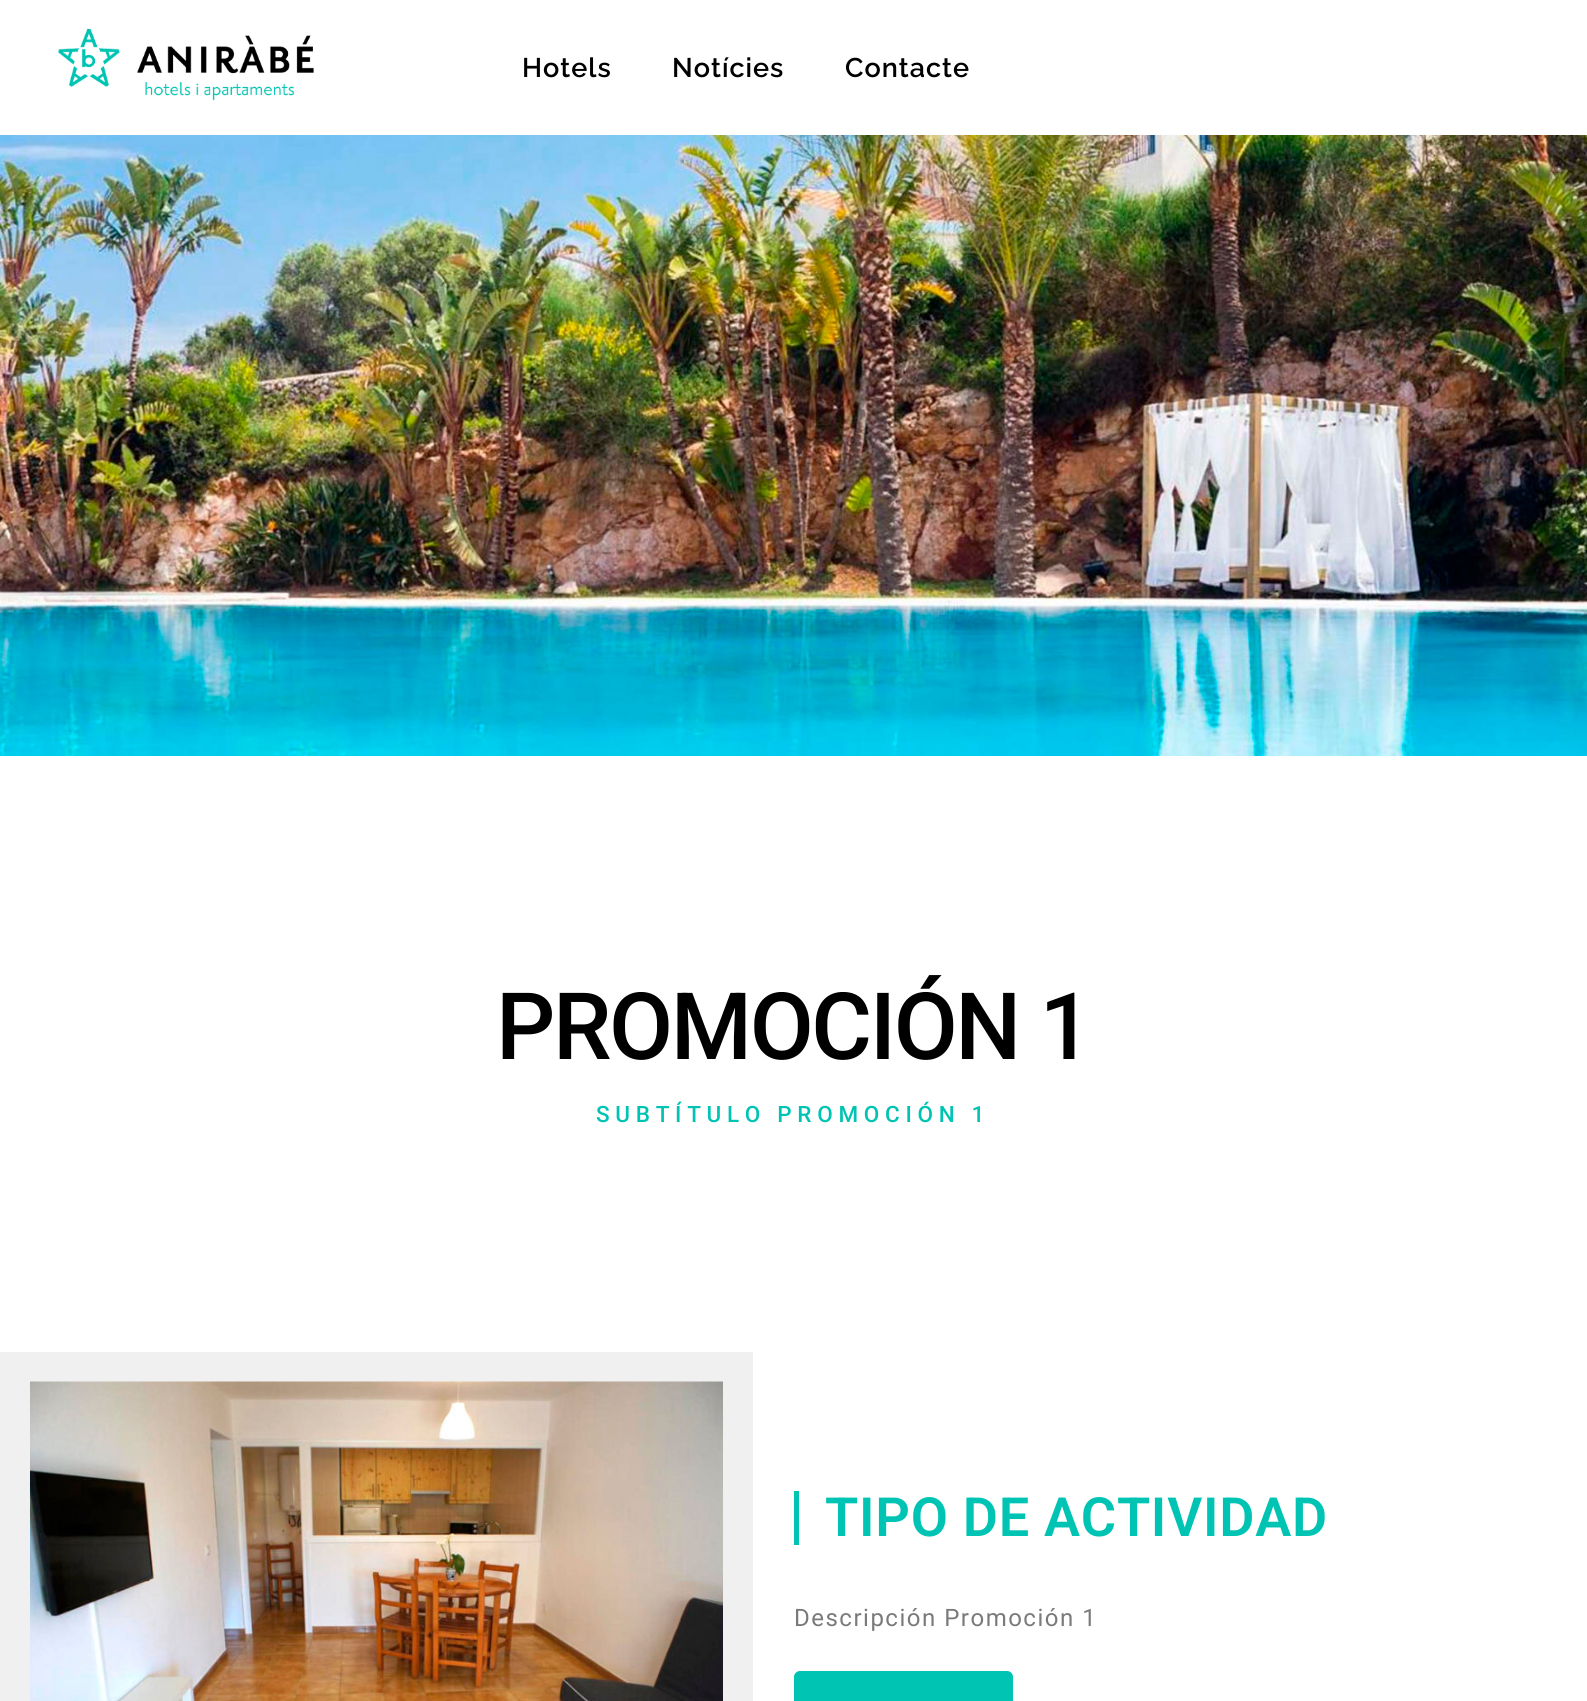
#include <cairo.h>
#include <math.h>
#include <stddef.h>


static void set_color(cairo_t *cr, unsigned color) {
    cairo_set_source_rgb(cr, (color >> 16) / 255.0, (color >> 8 & 255) / 255.0, (color & 255) / 255.0);
}

static void draw_spaced(cairo_t *cr, double x, double y, const char *s, double letter, double word) {
    cairo_move_to(cr, x, y);
    while (*s) {
        char ch[5] = {0};
        int n = 0;
        do ch[n++] = *s++; while ((*s & 0xC0) == 0x80);
        cairo_show_text(cr, ch);
        cairo_rel_move_to(cr, letter + word * (*ch == ' '), 0);
    }
}

static void fill_rect(cairo_t *cr, double x, double y, double w, double h, unsigned color) {
    set_color(cr, color);
    cairo_rectangle(cr, x, y, w, h);
    cairo_fill(cr);
}

static void rounded_rect(cairo_t *cr, double x, double y, double w, double h, double r) {
    cairo_new_sub_path(cr);
    cairo_arc(cr, x + w - r, y + h - r, r, 0, M_PI / 2);
    cairo_arc(cr, x + r, y + h - r, r, M_PI / 2, M_PI);
    cairo_arc(cr, x + r, y + r, r, M_PI, 1.5 * M_PI);
    cairo_arc(cr, x + w - r, y + r, r, 1.5 * M_PI, 2 * M_PI);
    cairo_close_path(cr);
}

static void draw_image(cairo_t *cr, const char *path, double x, double y, double w, double h) {
    cairo_surface_t *image = cairo_image_surface_create_from_png(path);
    cairo_save(cr);
    cairo_set_source_surface(cr, image, x, y);
    cairo_rectangle(cr, x, y, w, h);
    cairo_fill(cr);
    cairo_restore(cr);
    cairo_surface_destroy(image);
}

int main(void) {
    cairo_surface_t *surface = cairo_image_surface_create(CAIRO_FORMAT_RGB24, 1587, 1701);
    cairo_t *cr = cairo_create(surface);
    cairo_font_options_t *options = cairo_font_options_create();
    cairo_font_options_set_hint_metrics(options, CAIRO_HINT_METRICS_OFF);
    cairo_font_options_set_hint_style(options, CAIRO_HINT_STYLE_NONE);
    cairo_set_font_options(cr, options);
    cairo_set_miter_limit(cr, 4);
    set_color(cr, 0xFFFFFF);
    cairo_paint(cr);
    draw_image(cr, "assets/img1.png", 58, 28, 256, 73);
    cairo_select_font_face(cr, "Raleway SemiBold", CAIRO_FONT_SLANT_NORMAL, CAIRO_FONT_WEIGHT_NORMAL);
    cairo_set_font_size(cr, 27);
    set_color(cr, 0x000000);
    draw_spaced(cr, 522, 77, "Hotels", 1, 0);
    draw_spaced(cr, 672, 77, "Notícies", 1, 0);
    draw_spaced(cr, 845, 77, "Contacte", 1, 0);
    draw_image(cr, "assets/img2.png", 0, 135, 1587, 621);
    cairo_select_font_face(cr, "Roboto Medium", CAIRO_FONT_SLANT_NORMAL, CAIRO_FONT_WEIGHT_NORMAL);
    cairo_set_font_size(cr, 93);
    draw_spaced(cr, 496, 1059, "PROMOCIÓN 1", -2.4, 0);
    cairo_set_font_size(cr, 22.5);
    set_color(cr, 0x00C4B3);
    draw_spaced(cr, 596, 1122, "SUBTÍTULO PROMOCIÓN 1", 5.7, 0);
    fill_rect(cr, 0, 1352, 753, 349, 0xF0F0F0);
    draw_image(cr, "assets/img3.png", 30, 1381, 693, 320);
    fill_rect(cr, 794, 1491, 5, 54, 0x00C4B3);
    cairo_select_font_face(cr, "Roboto SemiBold", CAIRO_FONT_SLANT_NORMAL, CAIRO_FONT_WEIGHT_NORMAL);
    cairo_set_font_size(cr, 54);
    draw_spaced(cr, 825, 1536, "TIPO DE ACTIVIDAD", 0.75, 0);
    cairo_select_font_face(cr, "Roboto", CAIRO_FONT_SLANT_NORMAL, CAIRO_FONT_WEIGHT_NORMAL);
    cairo_set_font_size(cr, 24);
    set_color(cr, 0x7A7A7A);
    draw_spaced(cr, 794, 1626, "Descripción Promoción 1", 1.5, 0);
    set_color(cr, 0x00C4B3);
    rounded_rect(cr, 794, 1671, 219, 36, 6);
    cairo_fill(cr);
    cairo_surface_write_to_png(surface, "output.png");
    cairo_font_options_destroy(options);
    cairo_destroy(cr);
    cairo_surface_destroy(surface);
    return 0;
}
